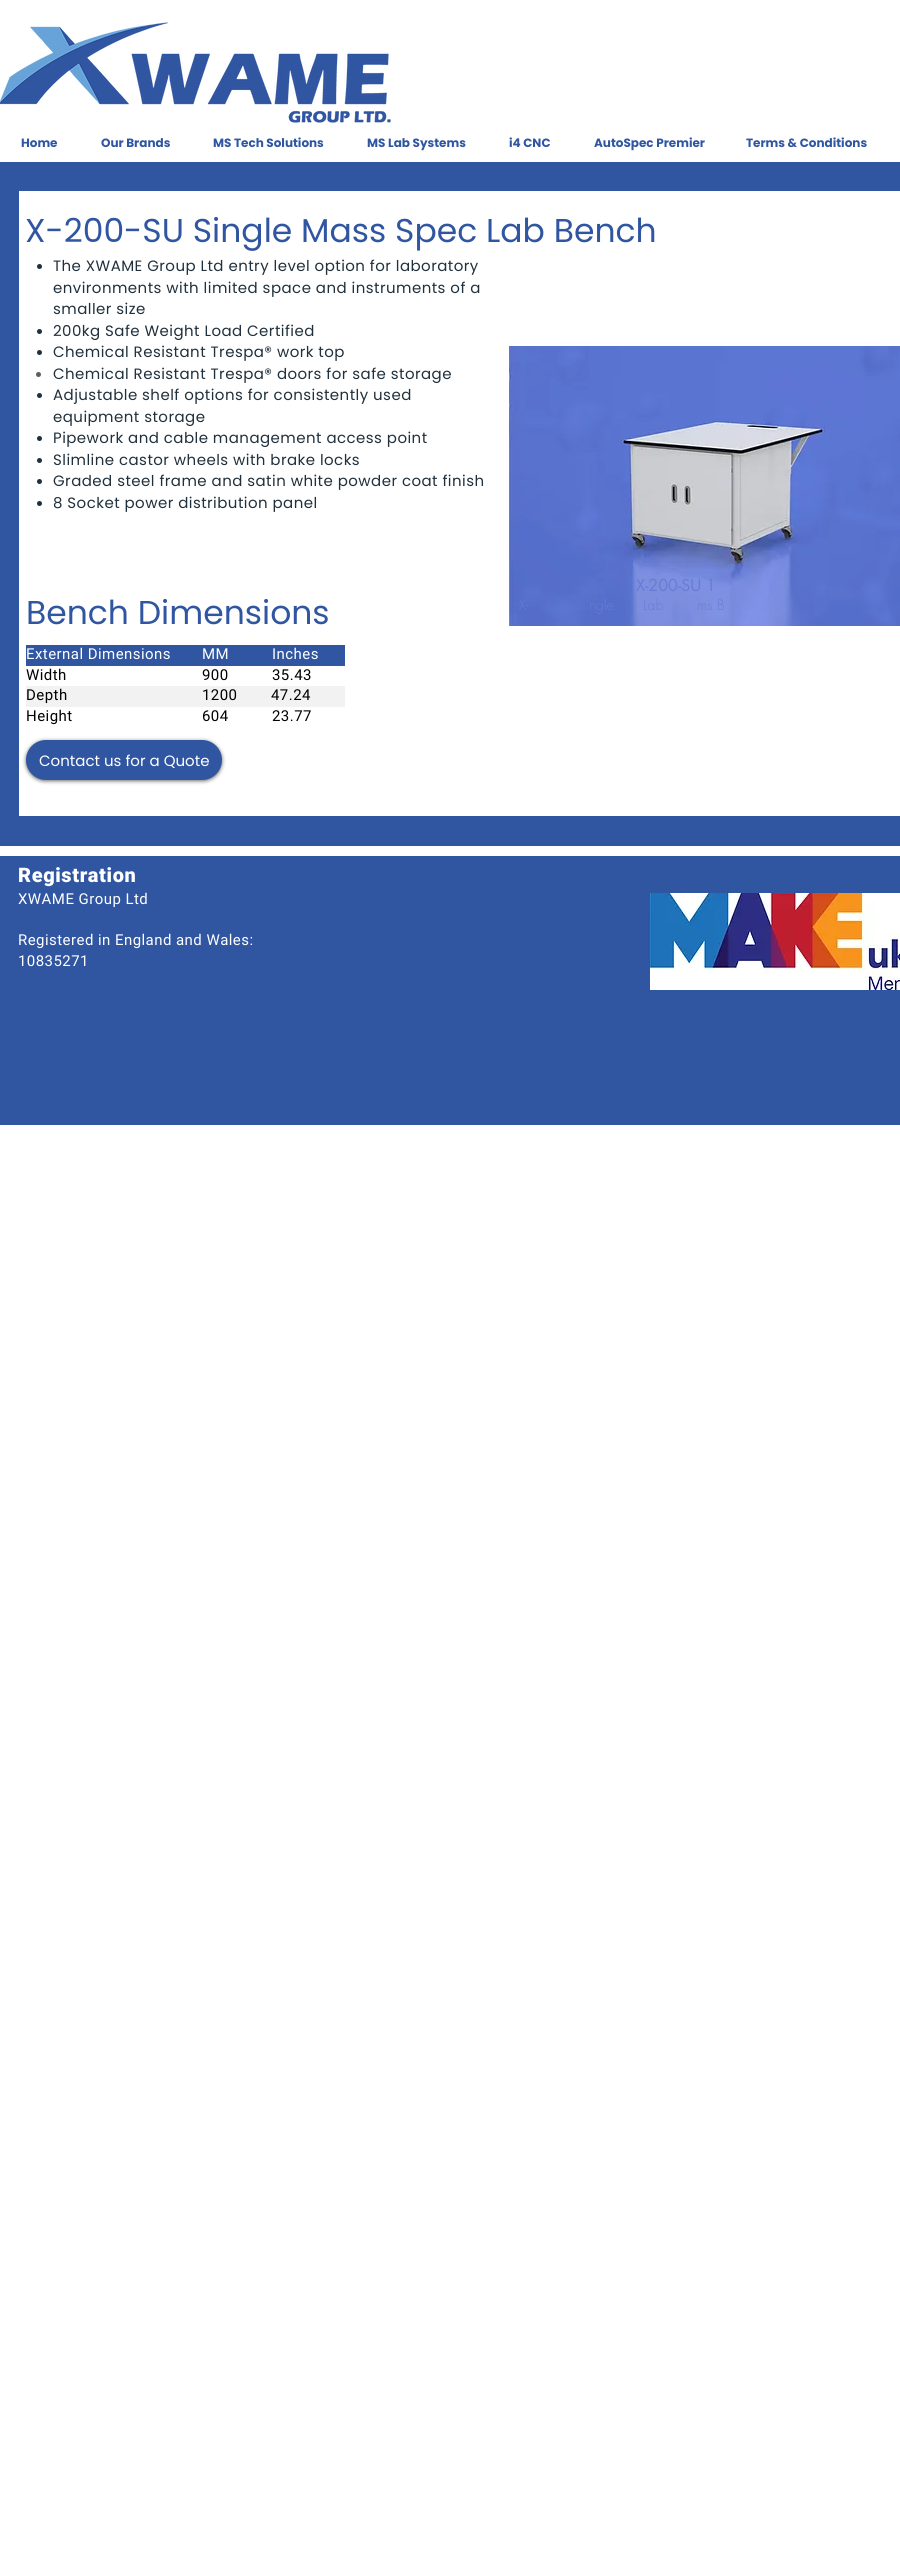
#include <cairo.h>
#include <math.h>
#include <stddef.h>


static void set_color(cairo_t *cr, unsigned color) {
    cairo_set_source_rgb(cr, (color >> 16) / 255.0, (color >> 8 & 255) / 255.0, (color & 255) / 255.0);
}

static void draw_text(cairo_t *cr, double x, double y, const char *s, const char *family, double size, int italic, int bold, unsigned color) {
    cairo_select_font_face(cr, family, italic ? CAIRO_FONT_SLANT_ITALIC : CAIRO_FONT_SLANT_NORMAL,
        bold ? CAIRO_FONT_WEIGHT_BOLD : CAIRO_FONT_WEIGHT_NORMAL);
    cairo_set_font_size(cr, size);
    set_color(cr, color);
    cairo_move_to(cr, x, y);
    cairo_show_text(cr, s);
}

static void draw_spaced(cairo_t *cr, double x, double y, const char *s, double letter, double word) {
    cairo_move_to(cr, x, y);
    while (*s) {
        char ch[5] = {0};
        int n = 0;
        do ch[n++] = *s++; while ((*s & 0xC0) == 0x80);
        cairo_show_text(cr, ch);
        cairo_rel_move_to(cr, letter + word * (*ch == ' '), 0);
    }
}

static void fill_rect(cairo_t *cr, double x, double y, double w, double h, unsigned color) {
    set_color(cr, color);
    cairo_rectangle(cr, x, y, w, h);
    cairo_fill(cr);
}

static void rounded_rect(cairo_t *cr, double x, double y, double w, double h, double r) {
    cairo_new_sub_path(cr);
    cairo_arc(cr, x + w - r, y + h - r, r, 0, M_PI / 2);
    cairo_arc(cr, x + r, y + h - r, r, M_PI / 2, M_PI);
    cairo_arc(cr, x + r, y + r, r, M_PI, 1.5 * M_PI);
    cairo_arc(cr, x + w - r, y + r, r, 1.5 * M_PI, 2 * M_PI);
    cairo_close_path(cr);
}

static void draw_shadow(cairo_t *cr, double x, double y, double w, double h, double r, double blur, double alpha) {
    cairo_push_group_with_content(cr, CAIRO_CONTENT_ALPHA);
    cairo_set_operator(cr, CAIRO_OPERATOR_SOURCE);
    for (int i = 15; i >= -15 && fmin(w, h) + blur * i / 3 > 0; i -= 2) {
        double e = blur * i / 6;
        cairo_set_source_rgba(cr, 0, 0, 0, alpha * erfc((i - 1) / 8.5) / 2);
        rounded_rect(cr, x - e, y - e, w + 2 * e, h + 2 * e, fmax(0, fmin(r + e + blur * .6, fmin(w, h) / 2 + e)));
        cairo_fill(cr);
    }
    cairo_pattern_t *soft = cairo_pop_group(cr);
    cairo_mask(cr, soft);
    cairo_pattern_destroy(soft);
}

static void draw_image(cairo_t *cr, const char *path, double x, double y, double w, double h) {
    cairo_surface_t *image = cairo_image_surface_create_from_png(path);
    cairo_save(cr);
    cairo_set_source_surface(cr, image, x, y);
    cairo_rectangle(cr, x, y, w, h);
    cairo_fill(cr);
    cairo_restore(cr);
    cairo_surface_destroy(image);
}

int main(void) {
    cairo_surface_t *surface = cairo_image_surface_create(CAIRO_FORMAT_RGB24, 900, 2552);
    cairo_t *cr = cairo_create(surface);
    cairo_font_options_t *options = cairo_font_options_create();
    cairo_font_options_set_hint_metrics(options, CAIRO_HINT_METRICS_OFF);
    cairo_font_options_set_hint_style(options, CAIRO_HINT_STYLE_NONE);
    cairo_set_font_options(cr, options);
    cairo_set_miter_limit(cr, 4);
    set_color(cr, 0xFFFFFF);
    cairo_paint(cr);
    draw_image(cr, "assets/img1.png", 0, 22, 391, 101);
    draw_text(cr, 21, 147, "Home", "Poppins", 12, 0, 1, 0x3056A2);
    draw_text(cr, 101, 147, "Our Brands", "Poppins", 12, 0, 1, 0x3056A2);
    draw_text(cr, 213, 147, "MS Tech Solutions", "Poppins", 12, 0, 1, 0x3056A2);
    draw_text(cr, 367, 147, "MS Lab Systems", "Poppins", 12, 0, 1, 0x3056A2);
    draw_text(cr, 509, 147, "i4 CNC", "Poppins", 12, 0, 1, 0x3056A2);
    draw_text(cr, 594, 147, "AutoSpec Premier", "Poppins", 12, 0, 1, 0x3056A2);
    draw_text(cr, 746, 147, "Terms & Conditions", "Poppins", 12, 0, 1, 0x3056A2);
    fill_rect(cr, 0, 162, 900, 684, 0x3056A2);
    fill_rect(cr, 19, 191, 881, 625, 0xFFFFFF);
    draw_text(cr, 25, 242, "X-200-SU Single Mass Spec Lab Bench", "Poppins", 33, 0, 0, 0x3056A2);
    set_color(cr, 0x20303C);
    cairo_new_path(cr);
    cairo_arc(cr, 39.5, 266.5, 2.5, 0, 2 * M_PI);
    cairo_fill(cr);
    cairo_set_font_size(cr, 15);
    draw_spaced(cr, 53, 271, "The XWAME Group Ltd entry level option for laboratory", 0.45, 0);
    draw_spaced(cr, 53, 293, "environments with limited space and instruments of a", 0.45, 0);
    draw_spaced(cr, 53, 314, "smaller size", 0.45, 0);
    cairo_new_path(cr);
    cairo_arc(cr, 39.5, 331.5, 2.5, 0, 2 * M_PI);
    cairo_fill(cr);
    draw_spaced(cr, 53, 336, "200kg Safe Weight Load Certified", 0.45, 0);
    cairo_new_path(cr);
    cairo_arc(cr, 39.5, 352.5, 2.5, 0, 2 * M_PI);
    cairo_fill(cr);
    draw_spaced(cr, 53, 357, "Chemical Resistant Trespa® work top", 0.45, 0);
    set_color(cr, 0x605E5E);
    cairo_new_path(cr);
    cairo_arc(cr, 38.5, 374.5, 2.5, 0, 2 * M_PI);
    cairo_fill(cr);
    set_color(cr, 0x20303C);
    draw_spaced(cr, 53, 379, "Chemical Resistant Trespa® doors for safe storage", 0.45, 0);
    cairo_new_path(cr);
    cairo_arc(cr, 39.5, 395.5, 2.5, 0, 2 * M_PI);
    cairo_fill(cr);
    draw_spaced(cr, 53, 400, "Adjustable shelf options for consistently used", 0.45, 0);
    draw_spaced(cr, 53, 422, "equipment storage", 0.45, 0);
    cairo_new_path(cr);
    cairo_arc(cr, 39.5, 438.5, 2.5, 0, 2 * M_PI);
    cairo_fill(cr);
    draw_spaced(cr, 53, 443, "Pipework and cable management access point", 0.45, 0);
    cairo_new_path(cr);
    cairo_arc(cr, 39.5, 460.5, 2.5, 0, 2 * M_PI);
    cairo_fill(cr);
    draw_spaced(cr, 53, 465, "Slimline castor wheels with brake locks", 0.45, 0);
    cairo_new_path(cr);
    cairo_arc(cr, 39.5, 481.5, 2.5, 0, 2 * M_PI);
    cairo_fill(cr);
    draw_spaced(cr, 53, 486, "Graded steel frame and satin white powder coat finish", 0.45, 0);
    cairo_new_path(cr);
    cairo_arc(cr, 39.5, 503.5, 2.5, 0, 2 * M_PI);
    cairo_fill(cr);
    draw_spaced(cr, 53, 508, "8 Socket power distribution panel", 0.45, 0);
    draw_text(cr, 26, 624, "Bench Dimensions", "Poppins", 33, 0, 0, 0x3056A2);
    draw_image(cr, "assets/img2.png", 509, 346, 391, 280);
    draw_text(cr, 636, 591, "X-200-SU 1", "futura", 16, 0, 0, 0x667CD4);
    draw_text(cr, 519, 610, "X-", "futura Light", 14, 0, 0, 0x667CD4);
    draw_text(cr, 589, 610, "ngle", "futura Light", 14, 0, 0, 0x667CD4);
    draw_text(cr, 643, 610, "Lab", "futura Light", 14, 0, 0, 0x667CD4);
    draw_text(cr, 697, 610, "ms B", "futura Light", 14, 0, 0, 0x667CD4);
    fill_rect(cr, 26, 645, 319, 21, 0x3056A2);
    cairo_select_font_face(cr, "Roboto", CAIRO_FONT_SLANT_NORMAL, CAIRO_FONT_WEIGHT_NORMAL);
    cairo_set_font_size(cr, 15);
    set_color(cr, 0xFFFFFF);
    draw_spaced(cr, 26, 659, "External Dimensions", 0.45, 0);
    draw_spaced(cr, 202, 659, "MM", 0.45, 0);
    draw_spaced(cr, 272, 659, "Inches", 0.45, 0);
    set_color(cr, 0x000000);
    draw_spaced(cr, 26, 680, "Width", 0.45, 0);
    draw_spaced(cr, 202, 680, "900", 0.45, 0);
    draw_spaced(cr, 272, 680, "35.43", 0.45, 0);
    fill_rect(cr, 26, 686, 319, 21, 0xF2F2F2);
    set_color(cr, 0x000000);
    draw_spaced(cr, 26, 700, "Depth", 0.45, 0);
    draw_spaced(cr, 202, 700, "1200", 0.45, 0);
    draw_spaced(cr, 271, 700, "47.24", 0.45, 0);
    draw_spaced(cr, 26, 721, "Height", 0.45, 0);
    draw_spaced(cr, 202, 721, "604", 0.45, 0);
    draw_spaced(cr, 272, 721, "23.77", 0.45, 0);
    set_color(cr, 0x000000);
    draw_shadow(cr, 26, 741, 196, 40, 20, 2, 0.6);
    set_color(cr, 0x3056A2);
    rounded_rect(cr, 26, 740, 196, 40, 20);
    cairo_fill(cr);
    draw_text(cr, 39, 766, "Contact us for a Quote", "Poppins", 15, 0, 0, 0xFFFFFF);
    fill_rect(cr, 0, 856, 900, 269, 0x3056A2);
    cairo_select_font_face(cr, "Roboto Black", CAIRO_FONT_SLANT_NORMAL, CAIRO_FONT_WEIGHT_NORMAL);
    cairo_set_font_size(cr, 20);
    set_color(cr, 0xFFFFFF);
    draw_spaced(cr, 18, 882, "Registration", 0.6, 0);
    cairo_select_font_face(cr, "Roboto", CAIRO_FONT_SLANT_NORMAL, CAIRO_FONT_WEIGHT_NORMAL);
    cairo_set_font_size(cr, 15);
    draw_spaced(cr, 18, 904, "XWAME Group Ltd", 0.45, 0);
    draw_spaced(cr, 18, 945, "Registered in England and Wales:", 0.45, 0);
    draw_spaced(cr, 18, 966, "10835271", 0.45, 0);
    draw_image(cr, "assets/img3.png", 650, 893, 250, 97);
    cairo_surface_write_to_png(surface, "output.png");
    cairo_font_options_destroy(options);
    cairo_destroy(cr);
    cairo_surface_destroy(surface);
    return 0;
}
